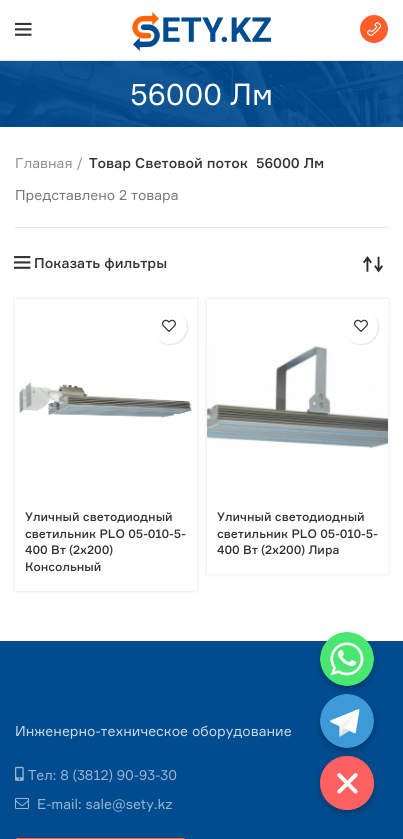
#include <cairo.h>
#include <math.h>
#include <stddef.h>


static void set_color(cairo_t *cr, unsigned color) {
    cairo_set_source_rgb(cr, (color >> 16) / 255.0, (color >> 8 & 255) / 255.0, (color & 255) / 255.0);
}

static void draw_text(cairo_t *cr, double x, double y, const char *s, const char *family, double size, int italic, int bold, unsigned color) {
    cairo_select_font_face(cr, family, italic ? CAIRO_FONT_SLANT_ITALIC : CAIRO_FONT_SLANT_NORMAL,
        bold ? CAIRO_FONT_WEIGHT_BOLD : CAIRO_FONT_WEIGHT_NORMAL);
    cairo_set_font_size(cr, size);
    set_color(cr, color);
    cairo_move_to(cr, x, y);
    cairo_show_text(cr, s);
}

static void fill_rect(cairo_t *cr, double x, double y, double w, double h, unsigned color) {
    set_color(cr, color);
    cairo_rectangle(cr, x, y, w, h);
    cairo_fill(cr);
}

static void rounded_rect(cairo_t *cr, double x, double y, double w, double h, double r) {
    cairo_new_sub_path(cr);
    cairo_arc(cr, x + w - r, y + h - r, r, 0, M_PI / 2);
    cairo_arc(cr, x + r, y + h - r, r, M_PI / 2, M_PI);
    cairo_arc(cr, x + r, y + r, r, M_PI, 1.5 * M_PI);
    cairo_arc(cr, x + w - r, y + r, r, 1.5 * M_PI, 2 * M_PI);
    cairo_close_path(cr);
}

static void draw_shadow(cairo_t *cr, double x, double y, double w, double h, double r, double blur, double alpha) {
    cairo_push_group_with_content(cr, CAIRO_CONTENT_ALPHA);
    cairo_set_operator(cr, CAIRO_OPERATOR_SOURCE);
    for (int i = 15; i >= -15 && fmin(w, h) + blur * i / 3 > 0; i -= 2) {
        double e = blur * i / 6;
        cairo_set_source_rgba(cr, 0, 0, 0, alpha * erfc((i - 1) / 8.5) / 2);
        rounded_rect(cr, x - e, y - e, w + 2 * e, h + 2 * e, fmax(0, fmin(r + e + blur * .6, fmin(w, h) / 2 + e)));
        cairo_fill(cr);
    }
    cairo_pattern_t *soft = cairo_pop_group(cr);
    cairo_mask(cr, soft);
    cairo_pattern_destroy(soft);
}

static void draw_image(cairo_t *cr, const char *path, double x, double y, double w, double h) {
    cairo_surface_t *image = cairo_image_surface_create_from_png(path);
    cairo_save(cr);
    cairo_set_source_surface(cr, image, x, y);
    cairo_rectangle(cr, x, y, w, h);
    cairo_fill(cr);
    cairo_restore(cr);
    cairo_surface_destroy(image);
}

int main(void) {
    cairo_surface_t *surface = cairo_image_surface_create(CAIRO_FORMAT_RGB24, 403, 839);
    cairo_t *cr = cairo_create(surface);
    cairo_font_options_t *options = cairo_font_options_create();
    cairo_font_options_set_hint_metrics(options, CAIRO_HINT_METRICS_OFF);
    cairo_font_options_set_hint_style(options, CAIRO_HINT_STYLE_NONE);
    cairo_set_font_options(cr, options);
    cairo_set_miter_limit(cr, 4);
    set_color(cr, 0xFFFFFF);
    cairo_paint(cr);
    fill_rect(cr, 0, 60, 403, 1, 0xE8E8E8);
    draw_image(cr, "assets/img1.png", 15, 22, 17, 14);
    draw_image(cr, "assets/img2.png", 132, 12, 139, 39);
    draw_image(cr, "assets/img3.png", 360, 15, 28, 28);
    draw_image(cr, "assets/img4.png", 0, 61, 403, 66);
    draw_text(cr, 130, 105, "56000 Лм", "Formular", 30, 0, 0, 0xFFFFFF);
    fill_rect(cr, 15, 227, 373, 1, 0xE6E6E6);
    draw_text(cr, 15, 168, "Главная", "Formular", 14, 0, 0, 0x8E8E8E);
    draw_text(cr, 77, 168, "/", "Formular", 14, 0, 0, 0x8E8E8E);
    draw_text(cr, 89, 168, "Товар Световой поток", "Formular Medium", 14, 0, 0, 0x333333);
    draw_text(cr, 256, 168, "56000 Лм", "Formular Medium", 14, 0, 0, 0x333333);
    draw_text(cr, 15, 200, "Представлено 2 товара", "Formular", 14, 0, 0, 0x777777);
    draw_image(cr, "assets/img5.png", 14, 256, 17, 13);
    draw_text(cr, 34, 268, "Показать фильтры", "Formular Medium", 14, 0, 0, 0x333333);
    draw_image(cr, "assets/img6.png", 363, 256, 20, 17);
    cairo_save(cr);
    cairo_set_fill_rule(cr, CAIRO_FILL_RULE_EVEN_ODD);
    cairo_new_path(cr);
    cairo_move_to(cr, 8, 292);
    cairo_line_to(cr, 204, 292);
    cairo_line_to(cr, 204, 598);
    cairo_line_to(cr, 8, 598);
    cairo_close_path(cr);
    cairo_move_to(cr, 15, 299);
    cairo_line_to(cr, 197, 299);
    cairo_line_to(cr, 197, 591);
    cairo_line_to(cr, 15, 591);
    cairo_close_path(cr);
    cairo_clip(cr);
    set_color(cr, 0x000000);
    draw_shadow(cr, 15, 299, 182, 292, 0, 2, 0.12);
    cairo_restore(cr);
    set_color(cr, 0x000000);
    draw_shadow(cr, 153, 310, 35, 35, 17.5, 0.5, 0.1);
    set_color(cr, 0xFFFFFF);
    cairo_arc(cr, 169.5, 326.5, 17.5, 0, 2 * M_PI);
    cairo_fill(cr);
    draw_image(cr, "assets/img7.png", 162, 319, 14, 13);
    draw_image(cr, "assets/img8.png", 19, 382, 173, 36);
    draw_text(cr, 25, 521, "Уличный светодиодный", "Formular Medium", 12, 0, 0, 0x333333);
    draw_text(cr, 25, 538, "светильник PLO 05-010-5-", "Formular Medium", 12, 0, 0, 0x333333);
    draw_text(cr, 25, 554, "400 Вт (2х200)", "Formular Medium", 12, 0, 0, 0x333333);
    draw_text(cr, 25, 571, "Консольный", "Formular Medium", 12, 0, 0, 0x333333);
    cairo_save(cr);
    cairo_set_fill_rule(cr, CAIRO_FILL_RULE_EVEN_ODD);
    cairo_new_path(cr);
    cairo_move_to(cr, 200, 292);
    cairo_line_to(cr, 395, 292);
    cairo_line_to(cr, 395, 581);
    cairo_line_to(cr, 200, 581);
    cairo_close_path(cr);
    cairo_move_to(cr, 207, 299);
    cairo_line_to(cr, 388, 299);
    cairo_line_to(cr, 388, 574);
    cairo_line_to(cr, 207, 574);
    cairo_close_path(cr);
    cairo_clip(cr);
    set_color(cr, 0x000000);
    draw_shadow(cr, 207, 299, 181, 275, 0, 2, 0.12);
    cairo_restore(cr);
    draw_image(cr, "assets/img9.png", 207, 346, 181, 103);
    set_color(cr, 0x000000);
    draw_shadow(cr, 344, 310, 35, 35, 17.5, 0.5, 0.1);
    set_color(cr, 0xFFFFFF);
    cairo_arc(cr, 360.5, 326.5, 17.5, 0, 2 * M_PI);
    cairo_fill(cr);
    draw_image(cr, "assets/img7.png", 354, 319, 14, 13);
    draw_text(cr, 217, 521, "Уличный светодиодный", "Formular Medium", 12, 0, 0, 0x333333);
    draw_text(cr, 217, 538, "светильник PLO 05-010-5-", "Formular Medium", 12, 0, 0, 0x333333);
    draw_text(cr, 217, 554, "400 Вт (2х200) Лира", "Formular Medium", 12, 0, 0, 0x333333);
    fill_rect(cr, 0, 641, 403, 198, 0x014B8F);
    draw_text(cr, 15, 736, "Инженерно-техническое оборудование", "Formular", 14, 0, 0, 0xCCDBE9);
    draw_image(cr, "assets/img10.png", 15, 766, 9, 15);
    draw_text(cr, 28, 780, "Тел: 8 (3812) 90-93-30", "Formular", 14, 0, 0, 0x99B7D2);
    draw_image(cr, "assets/img11.png", 15, 798, 14, 11);
    draw_text(cr, 37, 809, "E-mail: sale@sety.kz", "Formular", 14, 0, 0, 0x99B7D2);
    set_color(cr, 0xFF5E2B);
    rounded_rect(cr, 15, 838, 171, 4, 3);
    cairo_fill(cr);
    set_color(cr, 0x000000);
    draw_shadow(cr, 320, 635, 54, 54, 27, 3, 0.25);
    draw_image(cr, "assets/img12.png", 320, 632, 54, 54);
    draw_shadow(cr, 320, 697, 54, 54, 27, 3, 0.25);
    draw_image(cr, "assets/img13.png", 320, 694, 54, 54);
    set_color(cr, 0xFF6060);
    cairo_arc(cr, 347, 783, 27, 0, 2 * M_PI);
    cairo_fill(cr);
    cairo_save(cr);
    cairo_set_fill_rule(cr, CAIRO_FILL_RULE_EVEN_ODD);
    cairo_new_path(cr);
    cairo_move_to(cr, 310, 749);
    cairo_line_to(cr, 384, 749);
    cairo_line_to(cr, 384, 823);
    cairo_line_to(cr, 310, 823);
    cairo_close_path(cr);
    cairo_move_to(cr, 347, 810);
    cairo_curve_to(cr, 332, 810, 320, 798, 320, 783);
    cairo_curve_to(cr, 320, 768, 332, 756, 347, 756);
    cairo_curve_to(cr, 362, 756, 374, 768, 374, 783);
    cairo_curve_to(cr, 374, 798, 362, 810, 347, 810);
    cairo_close_path(cr);
    cairo_clip(cr);
    set_color(cr, 0x000000);
    draw_shadow(cr, 320, 759, 54, 54, 27, 3, 0.25);
    cairo_restore(cr);
    draw_image(cr, "assets/img14.png", 334, 770, 40, 40);
    cairo_surface_write_to_png(surface, "output.png");
    cairo_font_options_destroy(options);
    cairo_destroy(cr);
    cairo_surface_destroy(surface);
    return 0;
}
